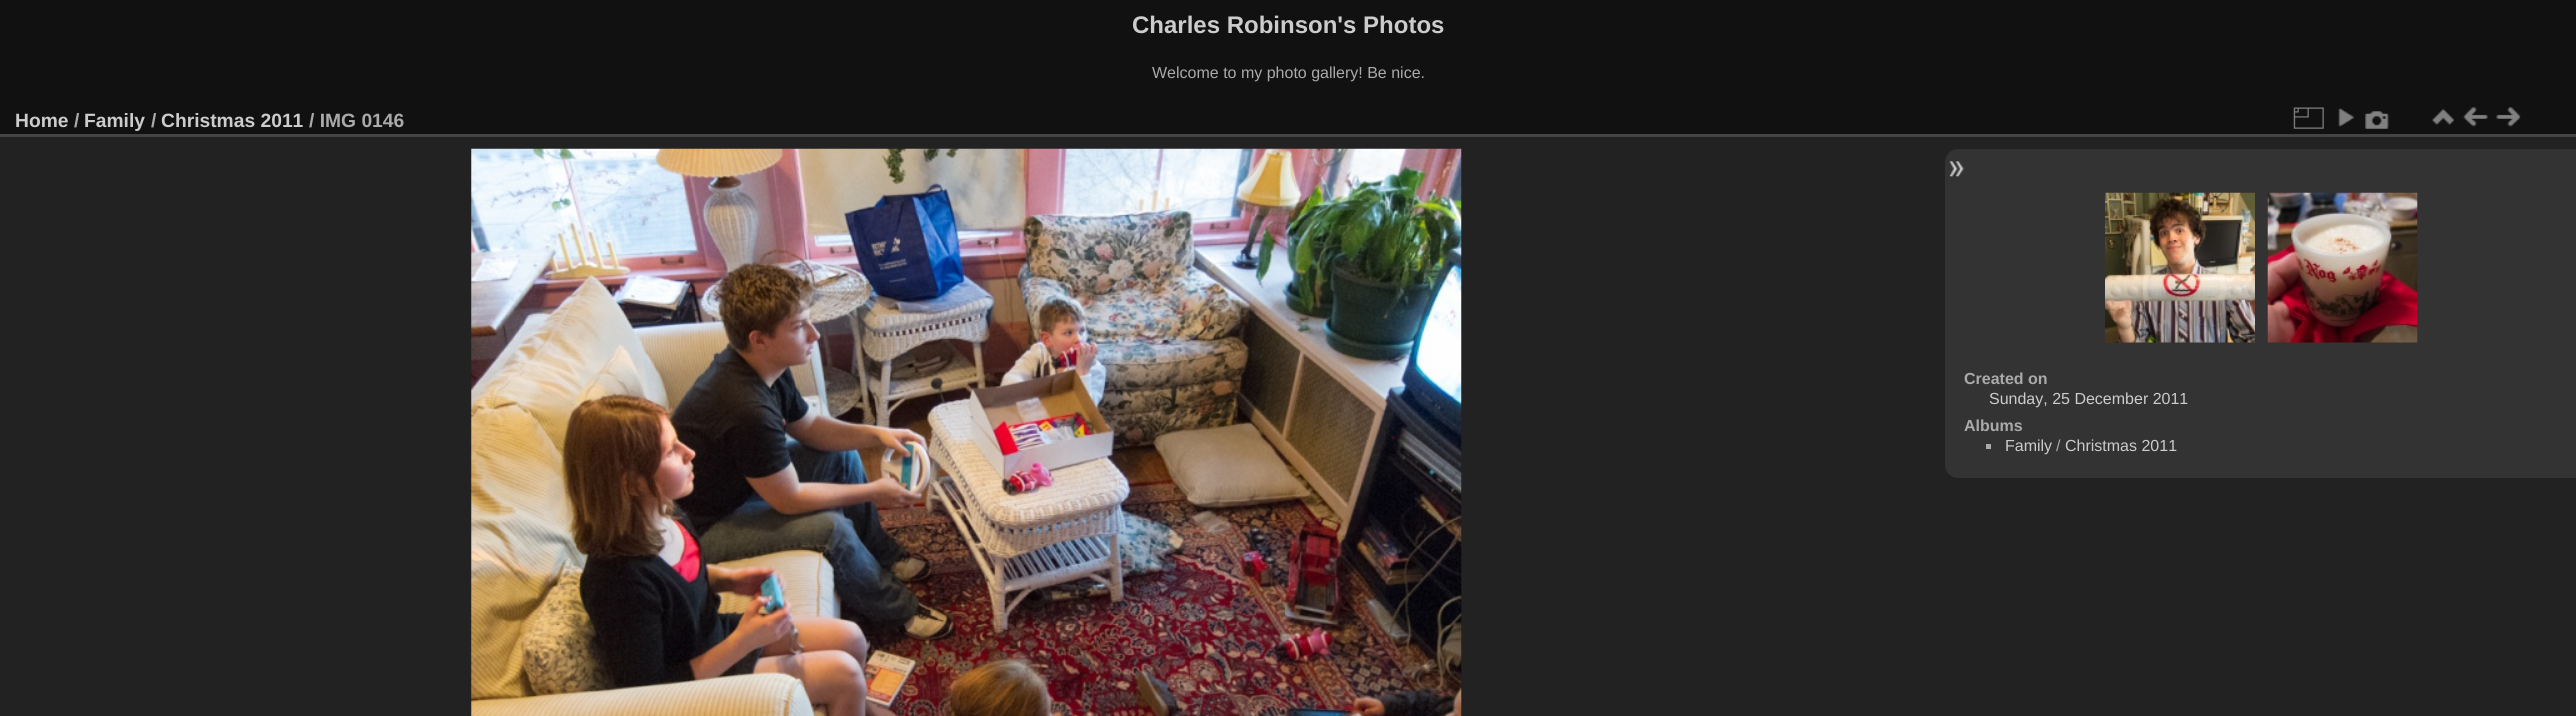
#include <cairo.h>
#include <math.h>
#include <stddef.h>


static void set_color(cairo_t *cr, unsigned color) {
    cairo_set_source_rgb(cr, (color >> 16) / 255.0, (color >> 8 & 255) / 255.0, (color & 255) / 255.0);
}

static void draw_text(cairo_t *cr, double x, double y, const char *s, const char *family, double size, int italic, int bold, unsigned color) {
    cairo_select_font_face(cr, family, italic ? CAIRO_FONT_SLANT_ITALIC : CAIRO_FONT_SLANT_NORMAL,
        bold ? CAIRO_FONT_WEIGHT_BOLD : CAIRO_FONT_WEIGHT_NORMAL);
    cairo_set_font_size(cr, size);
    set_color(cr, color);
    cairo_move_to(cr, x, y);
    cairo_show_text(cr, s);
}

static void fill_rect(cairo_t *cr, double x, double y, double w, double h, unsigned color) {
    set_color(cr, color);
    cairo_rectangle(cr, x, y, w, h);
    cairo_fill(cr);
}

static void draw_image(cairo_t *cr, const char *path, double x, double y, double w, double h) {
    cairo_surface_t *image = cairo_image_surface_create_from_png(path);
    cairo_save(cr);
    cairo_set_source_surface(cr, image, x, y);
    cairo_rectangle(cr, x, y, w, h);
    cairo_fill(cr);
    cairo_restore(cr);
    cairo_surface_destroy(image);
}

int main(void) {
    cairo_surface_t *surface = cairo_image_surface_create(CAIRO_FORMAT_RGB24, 2576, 716);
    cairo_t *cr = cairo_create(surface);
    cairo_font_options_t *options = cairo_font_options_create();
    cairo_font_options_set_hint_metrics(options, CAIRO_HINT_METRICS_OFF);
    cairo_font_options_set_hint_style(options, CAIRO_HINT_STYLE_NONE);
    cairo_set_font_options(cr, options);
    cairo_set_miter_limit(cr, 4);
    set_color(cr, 0x111111);
    cairo_paint(cr);
    draw_text(cr, 1132, 33, "Charles Robinson's Photos", "Liberation Sans", 24, 0, 1, 0xCCCCCC);
    draw_text(cr, 1152, 78, "Welcome to my photo gallery! Be nice.", "Liberation Sans", 16, 0, 0, 0xAAAAAA);
    fill_rect(cr, 0, 137, 2576, 579, 0x222222);
    fill_rect(cr, 0, 134, 2576, 3, 0x444444);
    draw_text(cr, 15, 127, "Home", "Liberation Sans", 19.25, 0, 1, 0xCCCCCC);
    draw_text(cr, 74, 127, "/", "Liberation Sans", 19.25, 0, 1, 0xAAAAAA);
    draw_text(cr, 84, 127, "Family", "Liberation Sans", 19.25, 0, 1, 0xCCCCCC);
    draw_text(cr, 151, 127, "/", "Liberation Sans", 19.25, 0, 1, 0xAAAAAA);
    draw_text(cr, 161, 127, "Christmas 2011", "Liberation Sans", 19.25, 0, 1, 0xCCCCCC);
    draw_text(cr, 309, 127, "/ IMG 0146", "Liberation Sans", 19.25, 0, 1, 0xAAAAAA);
    draw_image(cr, "assets/img1.png", 2293, 107, 31, 22);
    draw_image(cr, "assets/img2.png", 2338, 108, 16, 19);
    draw_image(cr, "assets/img3.png", 2365, 111, 24, 18);
    draw_image(cr, "assets/img4.png", 2432, 108, 22, 18);
    draw_image(cr, "assets/img5.png", 2463, 107, 25, 20);
    draw_image(cr, "assets/img6.png", 2496, 107, 25, 20);
    draw_image(cr, "assets/img7.png", 471, 148, 991, 568);
    set_color(cr, 0x333333);
    cairo_new_path(cr);
    cairo_move_to(cr, 1958, 149);
    cairo_line_to(cr, 2576, 149);
    cairo_line_to(cr, 2576, 478);
    cairo_line_to(cr, 1958, 478);
    cairo_curve_to(cr, 1951, 478, 1945, 472, 1945, 465);
    cairo_line_to(cr, 1945, 162);
    cairo_curve_to(cr, 1945, 155, 1951, 149, 1958, 149);
    cairo_close_path(cr);
    cairo_fill(cr);
    draw_image(cr, "assets/img8.png", 1949, 161, 15, 16);
    draw_image(cr, "assets/img9.png", 2105, 192, 150, 151);
    draw_image(cr, "assets/img10.png", 2267, 192, 151, 151);
    draw_text(cr, 1964, 384, "Created on", "Liberation Sans", 16, 0, 1, 0xAAAAAA);
    draw_text(cr, 1989, 404, "Sunday, 25 December 2011", "Liberation Sans", 16, 0, 0, 0xCCCCCC);
    draw_text(cr, 1964, 431, "Albums", "Liberation Sans", 16, 0, 1, 0xAAAAAA);
    fill_rect(cr, 1986, 444, 5, 5, 0xAAAAAA);
    draw_text(cr, 2005, 451, "Family", "Liberation Sans", 16, 0, 0, 0xCCCCCC);
    draw_text(cr, 2056, 451, "/", "Liberation Sans", 16, 0, 0, 0xAAAAAA);
    draw_text(cr, 2065, 451, "Christmas 2011", "Liberation Sans", 16, 0, 0, 0xCCCCCC);
    cairo_surface_write_to_png(surface, "output.png");
    cairo_font_options_destroy(options);
    cairo_destroy(cr);
    cairo_surface_destroy(surface);
    return 0;
}
